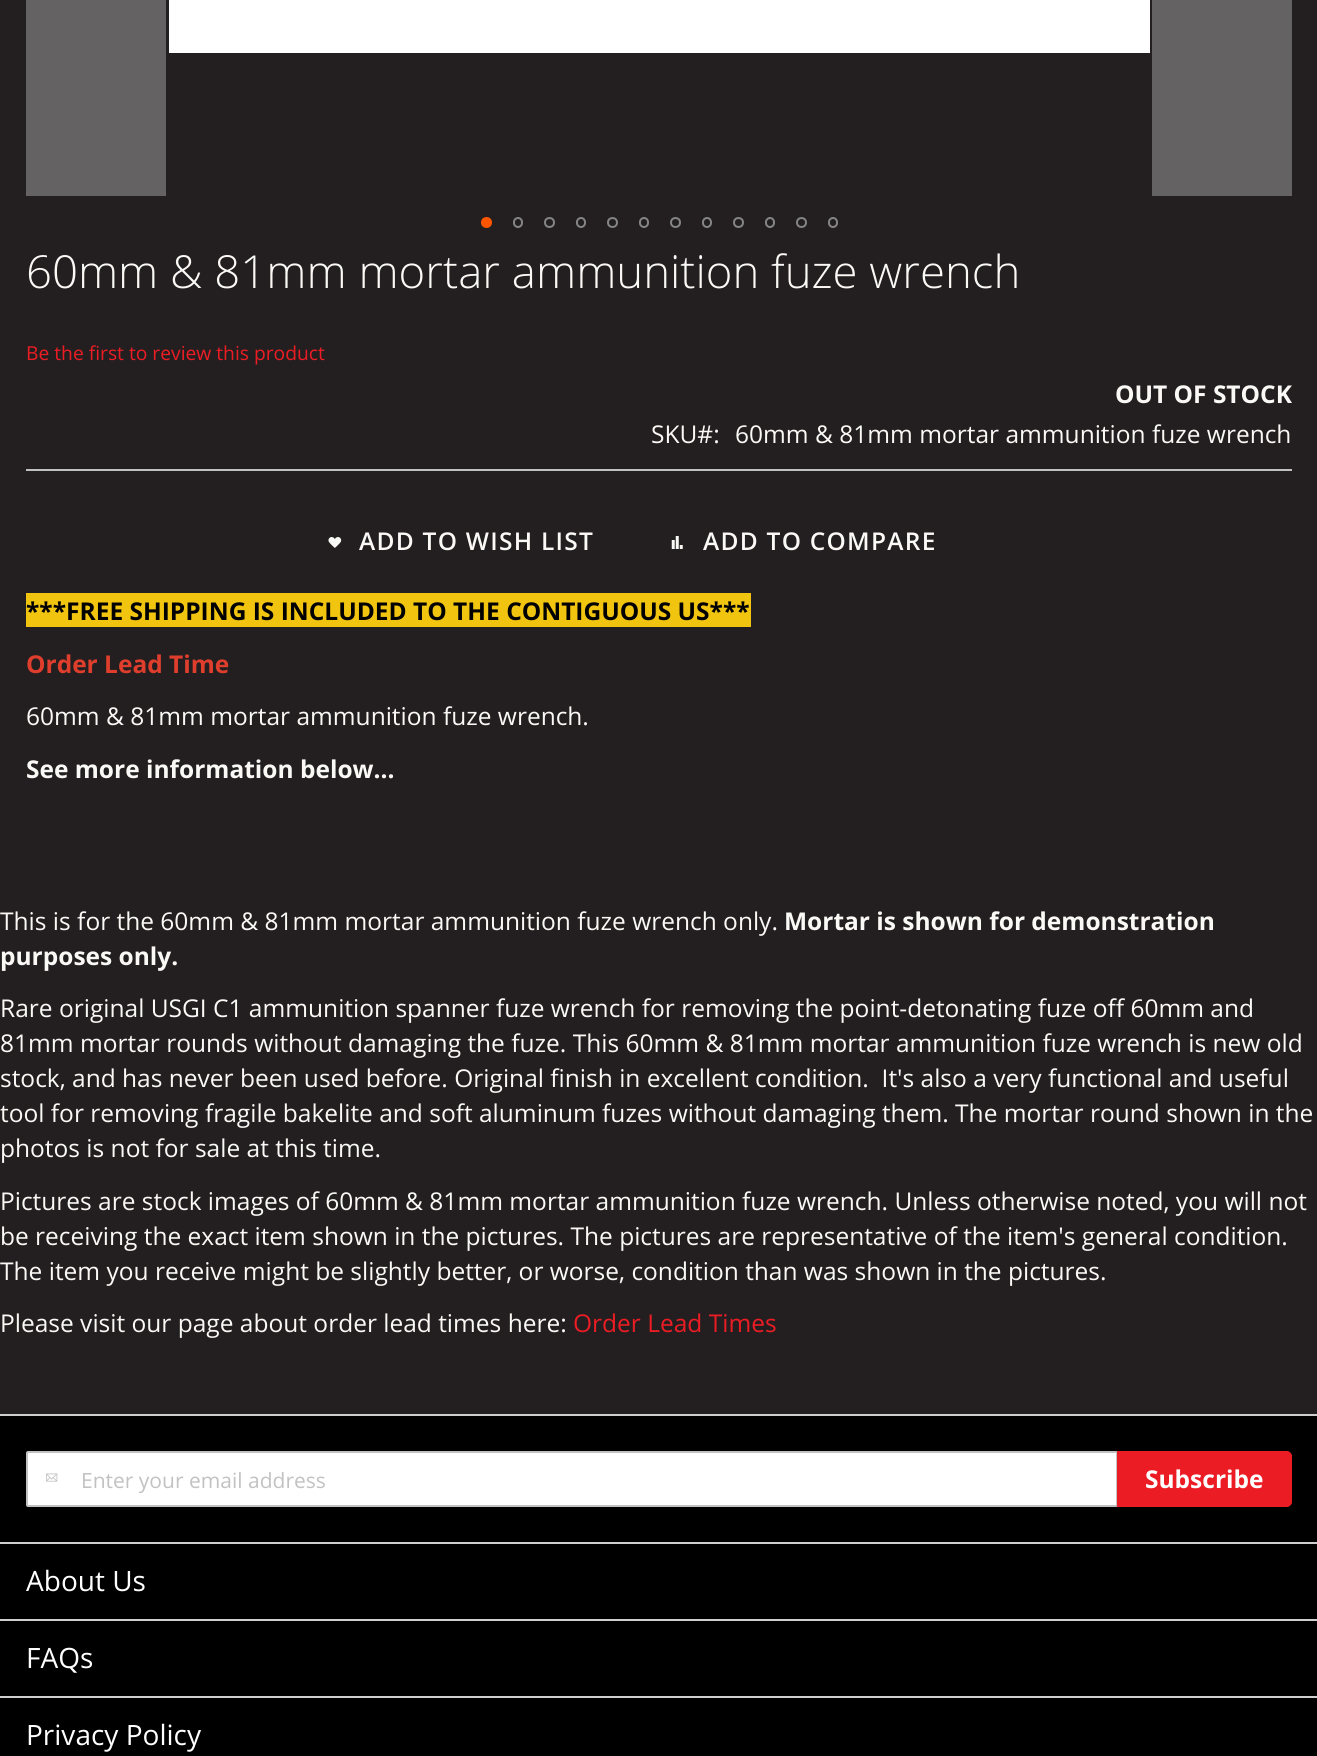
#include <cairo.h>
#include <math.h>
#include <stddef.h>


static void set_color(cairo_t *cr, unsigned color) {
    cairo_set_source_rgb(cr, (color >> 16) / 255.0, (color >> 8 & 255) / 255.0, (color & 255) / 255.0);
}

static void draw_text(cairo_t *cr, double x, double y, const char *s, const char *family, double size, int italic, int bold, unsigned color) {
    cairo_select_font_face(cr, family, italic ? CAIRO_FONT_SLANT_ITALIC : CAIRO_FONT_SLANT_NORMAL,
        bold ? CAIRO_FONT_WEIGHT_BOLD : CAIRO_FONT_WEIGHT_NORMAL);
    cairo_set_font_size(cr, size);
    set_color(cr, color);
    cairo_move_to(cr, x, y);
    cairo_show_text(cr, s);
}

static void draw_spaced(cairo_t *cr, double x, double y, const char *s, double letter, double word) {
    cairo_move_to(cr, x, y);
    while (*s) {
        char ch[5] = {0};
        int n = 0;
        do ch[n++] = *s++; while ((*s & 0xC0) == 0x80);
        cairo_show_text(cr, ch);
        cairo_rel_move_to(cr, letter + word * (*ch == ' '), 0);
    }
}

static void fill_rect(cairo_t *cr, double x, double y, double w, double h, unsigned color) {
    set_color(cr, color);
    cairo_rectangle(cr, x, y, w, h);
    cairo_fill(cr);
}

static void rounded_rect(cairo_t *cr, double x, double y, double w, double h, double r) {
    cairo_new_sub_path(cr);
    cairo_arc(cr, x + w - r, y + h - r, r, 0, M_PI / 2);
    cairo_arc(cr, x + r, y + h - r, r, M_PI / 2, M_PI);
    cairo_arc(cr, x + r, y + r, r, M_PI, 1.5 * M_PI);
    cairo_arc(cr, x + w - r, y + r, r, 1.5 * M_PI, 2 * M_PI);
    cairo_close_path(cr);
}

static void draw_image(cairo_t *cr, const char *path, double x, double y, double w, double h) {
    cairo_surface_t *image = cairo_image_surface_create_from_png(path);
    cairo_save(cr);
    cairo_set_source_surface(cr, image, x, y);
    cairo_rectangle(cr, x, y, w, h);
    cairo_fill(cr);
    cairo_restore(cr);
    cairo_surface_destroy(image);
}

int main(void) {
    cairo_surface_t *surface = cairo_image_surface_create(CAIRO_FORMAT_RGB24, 1317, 1756);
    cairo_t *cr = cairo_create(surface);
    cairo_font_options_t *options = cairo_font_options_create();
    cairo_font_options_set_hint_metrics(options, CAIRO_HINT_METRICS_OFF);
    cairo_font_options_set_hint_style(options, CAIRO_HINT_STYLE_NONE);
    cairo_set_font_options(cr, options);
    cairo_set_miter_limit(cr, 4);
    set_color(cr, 0x231F20);
    cairo_paint(cr);
    fill_rect(cr, 26, 0, 140, 196, 0x656263);
    fill_rect(cr, 169, 0, 981, 53, 0xFFFFFF);
    fill_rect(cr, 1152, 0, 140, 196, 0x656263);
    set_color(cr, 0xFF5501);
    cairo_arc(cr, 486.5, 222.5, 4.5, 0, 2 * M_PI);
    cairo_fill_preserve(cr);
    cairo_stroke(cr);
    rounded_rect(cr, 514, 218, 8, 9, 4);
    set_color(cr, 0x858585);
    cairo_stroke(cr);
    cairo_arc(cr, 549.5, 222.5, 4.5, 0, 2 * M_PI);
    cairo_stroke(cr);
    rounded_rect(cr, 577, 218, 8, 9, 4);
    cairo_stroke(cr);
    cairo_arc(cr, 612.5, 222.5, 4.5, 0, 2 * M_PI);
    cairo_stroke(cr);
    rounded_rect(cr, 640, 218, 8, 9, 4);
    cairo_stroke(cr);
    cairo_arc(cr, 675.5, 222.5, 4.5, 0, 2 * M_PI);
    cairo_stroke(cr);
    rounded_rect(cr, 703, 218, 8, 9, 4);
    cairo_stroke(cr);
    cairo_arc(cr, 738.5, 222.5, 4.5, 0, 2 * M_PI);
    cairo_stroke(cr);
    rounded_rect(cr, 766, 218, 8, 9, 4);
    cairo_stroke(cr);
    cairo_arc(cr, 801.5, 222.5, 4.5, 0, 2 * M_PI);
    cairo_stroke(cr);
    rounded_rect(cr, 829, 218, 8, 9, 4);
    cairo_stroke(cr);
    draw_text(cr, 26, 288, "60mm & 81mm mortar ammunition fuze wrench", "Open Sans Light", 45.5, 0, 0, 0xFAF9F6);
    draw_text(cr, 26, 360, "Be the first to review this product", "Open Sans", 19.25, 0, 0, 0xEC1C24);
    fill_rect(cr, 26, 469, 1266, 2, 0xC1C1C1);
    draw_text(cr, 1115, 403, "OUT OF STOCK", "Open Sans", 24.5, 0, 1, 0xFAF9F6);
    draw_text(cr, 651, 443, "SKU#:", "Open Sans", 24.5, 0, 0, 0xFAF9F6);
    draw_text(cr, 735, 443, "60mm & 81mm mortar ammunition fuze wrench", "Open Sans", 24.5, 0, 0, 0xFAF9F6);
    draw_image(cr, "assets/img1.png", 328, 537, 14, 11);
    cairo_select_font_face(cr, "Open Sans SemiBold", CAIRO_FONT_SLANT_NORMAL, CAIRO_FONT_WEIGHT_NORMAL);
    draw_spaced(cr, 359, 550, "ADD TO WISH LIST", 1.25, 0);
    draw_image(cr, "assets/img2.png", 671, 536, 12, 13);
    draw_spaced(cr, 703, 550, "ADD TO COMPARE", 1.25, 0);
    fill_rect(cr, 26, 593, 725, 34, 0xF1C40F);
    draw_text(cr, 26, 620, "***FREE SHIPPING IS INCLUDED TO THE CONTIGUOUS US***", "Open Sans", 24.5, 0, 1, 0x000000);
    draw_text(cr, 26, 673, "Order Lead Time", "Open Sans", 24.5, 0, 1, 0xE03E2D);
    draw_text(cr, 26, 725, "60mm & 81mm mortar ammunition fuze wrench.", "Open Sans", 24.5, 0, 0, 0xFAF9F6);
    draw_text(cr, 26, 778, "See more information below...", "Open Sans", 24.5, 0, 1, 0xFAF9F6);
    draw_text(cr, 0, 930, "This is for the 60mm & 81mm mortar ammunition fuze wrench only.", "Open Sans", 24.5, 0, 0, 0xFAF9F6);
    draw_text(cr, 784, 930, "Mortar is shown for demonstration", "Open Sans", 24.5, 0, 1, 0xFAF9F6);
    draw_text(cr, 0, 965, "purposes only.", "Open Sans", 24.5, 0, 1, 0xFAF9F6);
    draw_text(cr, 0, 1017, "Rare original USGI C1 ammunition spanner fuze wrench for removing the point-detonating fuze off 60mm and", "Open Sans", 24.5, 0, 0, 0xFAF9F6);
    draw_text(cr, 0, 1052, "81mm mortar rounds without damaging the fuze. This 60mm & 81mm mortar ammunition fuze wrench is new old", "Open Sans", 24.5, 0, 0, 0xFAF9F6);
    draw_text(cr, 0, 1087, "stock, and has never been used before. Original finish in excellent condition.  It's also a very functional and useful", "Open Sans", 24.5, 0, 0, 0xFAF9F6);
    draw_text(cr, 0, 1122, "tool for removing fragile bakelite and soft aluminum fuzes without damaging them. The mortar round shown in the", "Open Sans", 24.5, 0, 0, 0xFAF9F6);
    draw_text(cr, 0, 1157, "photos is not for sale at this time.", "Open Sans", 24.5, 0, 0, 0xFAF9F6);
    draw_text(cr, 0, 1210, "Pictures are stock images of 60mm & 81mm mortar ammunition fuze wrench. Unless otherwise noted, you will not", "Open Sans", 24.5, 0, 0, 0xFAF9F6);
    draw_text(cr, 0, 1245, "be receiving the exact item shown in the pictures. The pictures are representative of the item's general condition.", "Open Sans", 24.5, 0, 0, 0xFAF9F6);
    draw_text(cr, 0, 1280, "The item you receive might be slightly better, or worse, condition than was shown in the pictures.", "Open Sans", 24.5, 0, 0, 0xFAF9F6);
    draw_text(cr, 0, 1332, "Please visit our page about order lead times here:", "Open Sans", 24.5, 0, 0, 0xFAF9F6);
    draw_text(cr, 573, 1332, "Order Lead Times", "Open Sans", 24.5, 0, 0, 0xEC1C24);
    fill_rect(cr, 0, 1416, 1317, 340, 0x000000);
    fill_rect(cr, 0, 1414, 1317, 2, 0xCECECE);
    set_color(cr, 0xFFFFFF);
    rounded_rect(cr, 27, 1452, 1090, 54, 1);
    cairo_fill_preserve(cr);
    set_color(cr, 0xC2C2C2);
    cairo_stroke(cr);
    draw_image(cr, "assets/img3.png", 46, 1473, 12, 9);
    draw_text(cr, 81, 1488, "Enter your email address", "Open Sans", 21, 0, 0, 0xC2C2C2);
    set_color(cr, 0xEC1C24);
    cairo_new_path(cr);
    cairo_move_to(cr, 1118, 1452);
    cairo_line_to(cr, 1287, 1452);
    cairo_curve_to(cr, 1289, 1452, 1291, 1454, 1291, 1456);
    cairo_line_to(cr, 1291, 1502);
    cairo_curve_to(cr, 1291, 1504, 1289, 1506, 1287, 1506);
    cairo_line_to(cr, 1118, 1506);
    cairo_close_path(cr);
    cairo_fill_preserve(cr);
    cairo_stroke(cr);
    draw_text(cr, 1145, 1488, "Subscribe", "Open Sans", 24.5, 0, 1, 0xFFFFFF);
    fill_rect(cr, 0, 1542, 1317, 2, 0xCECECE);
    draw_text(cr, 26, 1591, "About Us", "Open Sans", 28, 0, 0, 0xFFFFFF);
    fill_rect(cr, 0, 1619, 1317, 2, 0xCECECE);
    draw_text(cr, 26, 1668, "FAQs", "Open Sans", 28, 0, 0, 0xFFFFFF);
    fill_rect(cr, 0, 1696, 1317, 2, 0xCECECE);
    draw_text(cr, 26, 1745, "Privacy Policy", "Open Sans", 28, 0, 0, 0xFFFFFF);
    cairo_surface_write_to_png(surface, "output.png");
    cairo_font_options_destroy(options);
    cairo_destroy(cr);
    cairo_surface_destroy(surface);
    return 0;
}
